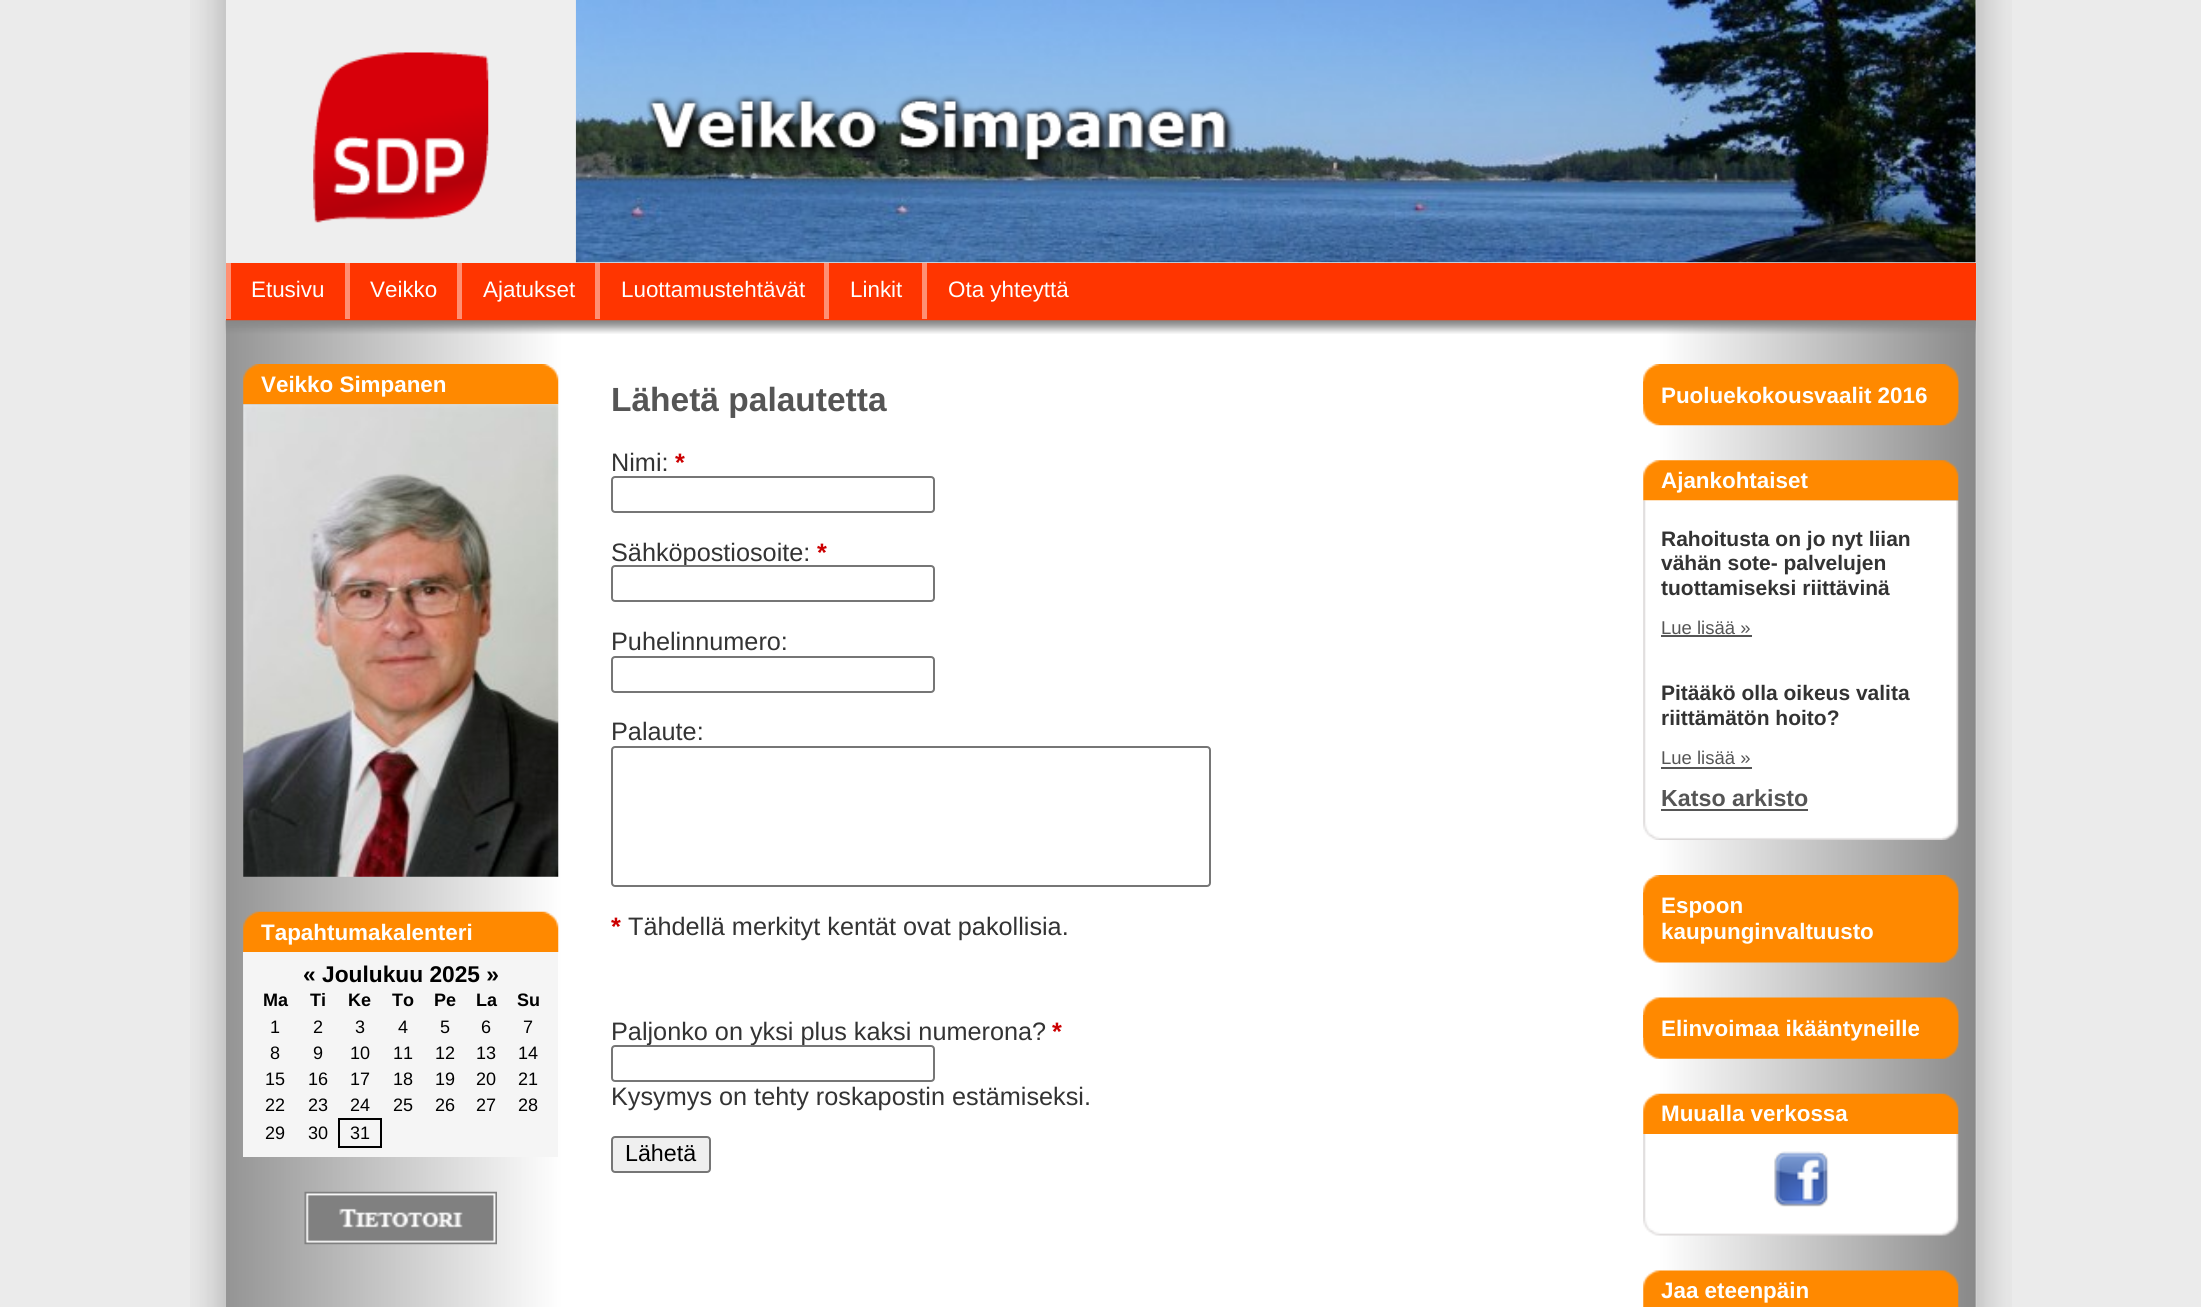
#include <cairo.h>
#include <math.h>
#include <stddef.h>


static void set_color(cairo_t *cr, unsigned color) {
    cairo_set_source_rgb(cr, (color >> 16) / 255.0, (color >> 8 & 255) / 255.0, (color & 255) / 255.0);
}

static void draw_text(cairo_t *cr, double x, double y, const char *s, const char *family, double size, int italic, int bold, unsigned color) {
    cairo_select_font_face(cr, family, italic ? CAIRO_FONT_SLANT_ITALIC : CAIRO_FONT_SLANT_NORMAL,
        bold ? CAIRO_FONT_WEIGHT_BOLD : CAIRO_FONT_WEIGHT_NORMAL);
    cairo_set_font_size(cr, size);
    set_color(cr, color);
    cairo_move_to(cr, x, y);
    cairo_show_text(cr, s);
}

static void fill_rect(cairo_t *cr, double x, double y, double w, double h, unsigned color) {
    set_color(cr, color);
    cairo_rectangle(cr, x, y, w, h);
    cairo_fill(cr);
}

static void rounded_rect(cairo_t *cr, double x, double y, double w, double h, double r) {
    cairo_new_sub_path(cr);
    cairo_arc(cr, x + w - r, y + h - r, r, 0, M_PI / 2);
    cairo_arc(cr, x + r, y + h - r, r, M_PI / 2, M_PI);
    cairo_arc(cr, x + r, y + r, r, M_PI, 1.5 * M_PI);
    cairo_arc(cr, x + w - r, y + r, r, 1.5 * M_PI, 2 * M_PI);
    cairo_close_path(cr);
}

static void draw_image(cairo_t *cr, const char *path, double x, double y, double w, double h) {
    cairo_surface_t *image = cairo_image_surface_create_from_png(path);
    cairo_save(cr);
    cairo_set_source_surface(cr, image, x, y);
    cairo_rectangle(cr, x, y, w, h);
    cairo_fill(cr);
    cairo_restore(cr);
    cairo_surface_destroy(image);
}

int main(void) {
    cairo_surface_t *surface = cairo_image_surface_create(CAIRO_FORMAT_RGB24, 2201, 1307);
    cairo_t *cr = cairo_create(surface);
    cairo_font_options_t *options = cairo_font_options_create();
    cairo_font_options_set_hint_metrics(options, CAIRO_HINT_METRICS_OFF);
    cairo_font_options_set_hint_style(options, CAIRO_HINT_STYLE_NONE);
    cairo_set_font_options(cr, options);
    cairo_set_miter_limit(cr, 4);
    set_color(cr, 0xEBEBEB);
    cairo_paint(cr);
    draw_image(cr, "assets/img1.png", 190, 0, 1822, 1307);
    draw_image(cr, "assets/img2.png", 225, 0, 1751, 1307);
    fill_rect(cr, 226, 0, 1750, 263, 0xEEEEEE);
    draw_image(cr, "assets/img3.png", 313, 52, 176, 171);
    draw_image(cr, "assets/img4.png", 575, 0, 1401, 263);
    draw_image(cr, "assets/img5.png", 646, 94, 590, 77);
    fill_rect(cr, 231, 263, 1745, 56, 0xFF3500);
    fill_rect(cr, 226, 319, 1750, 2, 0xFF3501);
    fill_rect(cr, 226, 263, 5, 56, 0xFF9073);
    draw_text(cr, 251, 297, "Etusivu", "Liberation Sans", 22.4, 0, 0, 0xFFFFFF);
    fill_rect(cr, 345, 263, 5, 56, 0xFF9073);
    draw_text(cr, 370, 297, "Veikko", "Liberation Sans", 22.4, 0, 0, 0xFFFFFF);
    fill_rect(cr, 457, 263, 5, 56, 0xFF9073);
    draw_text(cr, 483, 297, "Ajatukset", "Liberation Sans", 22.4, 0, 0, 0xFFFFFF);
    fill_rect(cr, 595, 263, 5, 56, 0xFF9073);
    draw_text(cr, 621, 297, "Luottamustehtävät", "Liberation Sans", 22.4, 0, 0, 0xFFFFFF);
    fill_rect(cr, 824, 263, 5, 56, 0xFF9073);
    draw_text(cr, 850, 297, "Linkit", "Liberation Sans", 22.4, 0, 0, 0xFFFFFF);
    fill_rect(cr, 922, 263, 5, 56, 0xFF9073);
    draw_text(cr, 948, 297, "Ota yhteyttä", "Liberation Sans", 22.4, 0, 0, 0xFFFFFF);
    draw_image(cr, "assets/img6.png", 225, 320, 1751, 14);
    draw_image(cr, "assets/img7.png", 243, 364, 316, 41);
    draw_text(cr, 261, 392, "Veikko Simpanen", "Liberation Sans", 22.4, 0, 1, 0xFFFFFF);
    draw_image(cr, "assets/img8.png", 243, 404, 316, 473);
    draw_image(cr, "assets/img9.png", 243, 911, 316, 41);
    draw_text(cr, 261, 940, "Tapahtumakalenteri", "Liberation Sans", 22.4, 0, 1, 0xFFFFFF);
    fill_rect(cr, 243, 952, 315, 205, 0xF5F5F5);
    draw_text(cr, 303, 982, "« Joulukuu 2025 »", "Liberation Sans", 22.75, 0, 1, 0x000000);
    draw_text(cr, 263, 1006, "Ma", "Liberation Sans", 18, 0, 1, 0x000000);
    draw_text(cr, 310, 1006, "Ti", "Liberation Sans", 18, 0, 1, 0x000000);
    draw_text(cr, 348, 1006, "Ke", "Liberation Sans", 18, 0, 1, 0x000000);
    draw_text(cr, 392, 1006, "To", "Liberation Sans", 18, 0, 1, 0x000000);
    draw_text(cr, 434, 1006, "Pe", "Liberation Sans", 18, 0, 1, 0x000000);
    draw_text(cr, 476, 1006, "La", "Liberation Sans", 18, 0, 1, 0x000000);
    draw_text(cr, 517, 1006, "Su", "Liberation Sans", 18, 0, 1, 0x000000);
    draw_text(cr, 270, 1033, "1", "Liberation Sans", 18, 0, 0, 0x000000);
    draw_text(cr, 313, 1033, "2", "Liberation Sans", 18, 0, 0, 0x000000);
    draw_text(cr, 355, 1033, "3", "Liberation Sans", 18, 0, 0, 0x000000);
    draw_text(cr, 398, 1033, "4", "Liberation Sans", 18, 0, 0, 0x000000);
    draw_text(cr, 440, 1033, "5", "Liberation Sans", 18, 0, 0, 0x000000);
    draw_text(cr, 481, 1033, "6", "Liberation Sans", 18, 0, 0, 0x000000);
    draw_text(cr, 523, 1033, "7", "Liberation Sans", 18, 0, 0, 0x000000);
    draw_text(cr, 270, 1059, "8", "Liberation Sans", 18, 0, 0, 0x000000);
    draw_text(cr, 313, 1059, "9", "Liberation Sans", 18, 0, 0, 0x000000);
    draw_text(cr, 350, 1059, "10", "Liberation Sans", 18, 0, 0, 0x000000);
    draw_text(cr, 393, 1059, "11", "Liberation Sans", 18, 0, 0, 0x000000);
    draw_text(cr, 435, 1059, "12", "Liberation Sans", 18, 0, 0, 0x000000);
    draw_text(cr, 476, 1059, "13", "Liberation Sans", 18, 0, 0, 0x000000);
    draw_text(cr, 518, 1059, "14", "Liberation Sans", 18, 0, 0, 0x000000);
    draw_text(cr, 265, 1085, "15", "Liberation Sans", 18, 0, 0, 0x000000);
    draw_text(cr, 308, 1085, "16", "Liberation Sans", 18, 0, 0, 0x000000);
    draw_text(cr, 350, 1085, "17", "Liberation Sans", 18, 0, 0, 0x000000);
    draw_text(cr, 393, 1085, "18", "Liberation Sans", 18, 0, 0, 0x000000);
    draw_text(cr, 435, 1085, "19", "Liberation Sans", 18, 0, 0, 0x000000);
    draw_text(cr, 476, 1085, "20", "Liberation Sans", 18, 0, 0, 0x000000);
    draw_text(cr, 518, 1085, "21", "Liberation Sans", 18, 0, 0, 0x000000);
    draw_text(cr, 265, 1111, "22", "Liberation Sans", 18, 0, 0, 0x000000);
    draw_text(cr, 308, 1111, "23", "Liberation Sans", 18, 0, 0, 0x000000);
    draw_text(cr, 350, 1111, "24", "Liberation Sans", 18, 0, 0, 0x000000);
    draw_text(cr, 393, 1111, "25", "Liberation Sans", 18, 0, 0, 0x000000);
    draw_text(cr, 435, 1111, "26", "Liberation Sans", 18, 0, 0, 0x000000);
    draw_text(cr, 476, 1111, "27", "Liberation Sans", 18, 0, 0, 0x000000);
    draw_text(cr, 518, 1111, "28", "Liberation Sans", 18, 0, 0, 0x000000);
    draw_text(cr, 265, 1139, "29", "Liberation Sans", 18, 0, 0, 0x000000);
    draw_text(cr, 308, 1139, "30", "Liberation Sans", 18, 0, 0, 0x000000);
    cairo_rectangle(cr, 339, 1119, 42, 28);
    cairo_stroke(cr);
    draw_text(cr, 350, 1139, "31", "Liberation Sans", 18, 0, 0, 0x000000);
    draw_image(cr, "assets/img10.png", 304, 1191, 193, 54);
    draw_text(cr, 611, 411, "Lähetä palautetta", "Liberation Sans", 33.5, 0, 1, 0x555555);
    draw_text(cr, 611, 471, "Nimi:", "Liberation Sans", 25.25, 0, 0, 0x333333);
    draw_text(cr, 675, 471, "*", "Liberation Sans", 25.25, 0, 1, 0xCC0001);
    rounded_rect(cr, 612, 477, 322, 35, 3);
    set_color(cr, 0x767676);
    cairo_stroke(cr);
    draw_text(cr, 611, 561, "Sähköpostiosoite:", "Liberation Sans", 25.25, 0, 0, 0x333333);
    draw_text(cr, 817, 561, "*", "Liberation Sans", 25.25, 0, 1, 0xCC0001);
    set_color(cr, 0xFFFFFF);
    rounded_rect(cr, 612, 566, 322, 35, 3);
    cairo_fill_preserve(cr);
    set_color(cr, 0x767676);
    cairo_stroke(cr);
    draw_text(cr, 611, 650, "Puhelinnumero:", "Liberation Sans", 25.25, 0, 0, 0x333333);
    rounded_rect(cr, 612, 657, 322, 35, 3);
    set_color(cr, 0x767676);
    cairo_stroke(cr);
    draw_text(cr, 611, 740, "Palaute:", "Liberation Sans", 25.25, 0, 0, 0x333333);
    rounded_rect(cr, 612, 747, 598, 139, 3);
    set_color(cr, 0x767676);
    cairo_stroke(cr);
    draw_text(cr, 611, 935, "*", "Liberation Sans", 25.25, 0, 1, 0xCC0001);
    draw_text(cr, 628, 935, "Tähdellä merkityt kentät ovat pakollisia.", "Liberation Sans", 25.25, 0, 0, 0x333333);
    draw_text(cr, 611, 1040, "Paljonko on yksi plus kaksi numerona?", "Liberation Sans", 25.25, 0, 0, 0x333333);
    draw_text(cr, 1052, 1040, "*", "Liberation Sans", 25.25, 0, 1, 0xCC0001);
    set_color(cr, 0xFFFFFF);
    rounded_rect(cr, 612, 1046, 322, 35, 3);
    cairo_fill_preserve(cr);
    set_color(cr, 0x767676);
    cairo_stroke(cr);
    draw_text(cr, 611, 1105, "Kysymys on tehty roskapostin estämiseksi.", "Liberation Sans", 25.25, 0, 0, 0x333333);
    set_color(cr, 0xEFEFEF);
    rounded_rect(cr, 612, 1137, 98, 35, 3);
    cairo_fill_preserve(cr);
    set_color(cr, 0x767676);
    cairo_stroke(cr);
    draw_text(cr, 625, 1161, "Lähetä", "Liberation Sans", 23.25, 0, 0, 0x000000);
    draw_image(cr, "assets/img11.png", 1643, 364, 316, 41);
    draw_image(cr, "assets/img12.png", 1643, 381, 316, 45);
    draw_text(cr, 1661, 403, "Puoluekokousvaalit 2016", "Liberation Sans", 22.4, 0, 1, 0xFFFFFF);
    draw_image(cr, "assets/img13.png", 1643, 460, 316, 41);
    draw_text(cr, 1661, 488, "Ajankohtaiset", "Liberation Sans", 22.4, 0, 1, 0xFFFFFF);
    draw_image(cr, "assets/img14.png", 1643, 500, 316, 340);
    draw_text(cr, 1661, 546, "Rahoitusta on jo nyt liian", "Liberation Sans", 21, 0, 1, 0x333333);
    draw_text(cr, 1661, 570, "vähän sote- palvelujen", "Liberation Sans", 21, 0, 1, 0x333333);
    draw_text(cr, 1661, 595, "tuottamiseksi riittävinä", "Liberation Sans", 21, 0, 1, 0x333333);
    draw_text(cr, 1661, 634, "Lue lisää »", "Liberation Sans", 18.5, 0, 0, 0x555555);
    fill_rect(cr, 1661, 635, 91, 2, 0x555555);
    draw_text(cr, 1661, 700, "Pitääkö olla oikeus valita", "Liberation Sans", 21, 0, 1, 0x333333);
    draw_text(cr, 1661, 725, "riittämätön hoito?", "Liberation Sans", 21, 0, 1, 0x333333);
    draw_text(cr, 1661, 764, "Lue lisää »", "Liberation Sans", 18.5, 0, 0, 0x555555);
    fill_rect(cr, 1661, 767, 91, 2, 0x555555);
    draw_text(cr, 1661, 806, "Katso arkisto", "Liberation Sans", 23.25, 0, 1, 0x555555);
    fill_rect(cr, 1661, 809, 147, 2, 0x555555);
    draw_image(cr, "assets/img11.png", 1643, 875, 316, 41);
    draw_image(cr, "assets/img15.png", 1643, 892, 316, 71);
    draw_text(cr, 1661, 913, "Espoon", "Liberation Sans", 22.4, 0, 1, 0xFFFFFF);
    draw_text(cr, 1661, 939, "kaupunginvaltuusto", "Liberation Sans", 22.4, 0, 1, 0xFFFFFF);
    draw_image(cr, "assets/img16.png", 1643, 997, 316, 41);
    draw_image(cr, "assets/img17.png", 1643, 1015, 316, 44);
    draw_text(cr, 1661, 1036, "Elinvoimaa ikääntyneille", "Liberation Sans", 22.4, 0, 1, 0xFFFFFF);
    draw_image(cr, "assets/img18.png", 1643, 1093, 316, 41);
    draw_text(cr, 1661, 1121, "Muualla verkossa", "Liberation Sans", 22.4, 0, 1, 0xFFFFFF);
    draw_image(cr, "assets/img19.png", 1643, 1134, 316, 102);
    draw_image(cr, "assets/img20.png", 1774, 1151, 55, 56);
    draw_image(cr, "assets/img21.png", 1643, 1270, 316, 37);
    draw_text(cr, 1661, 1298, "Jaa eteenpäin", "Liberation Sans", 22.4, 0, 1, 0xFFFFFF);
    cairo_surface_write_to_png(surface, "output.png");
    cairo_font_options_destroy(options);
    cairo_destroy(cr);
    cairo_surface_destroy(surface);
    return 0;
}
